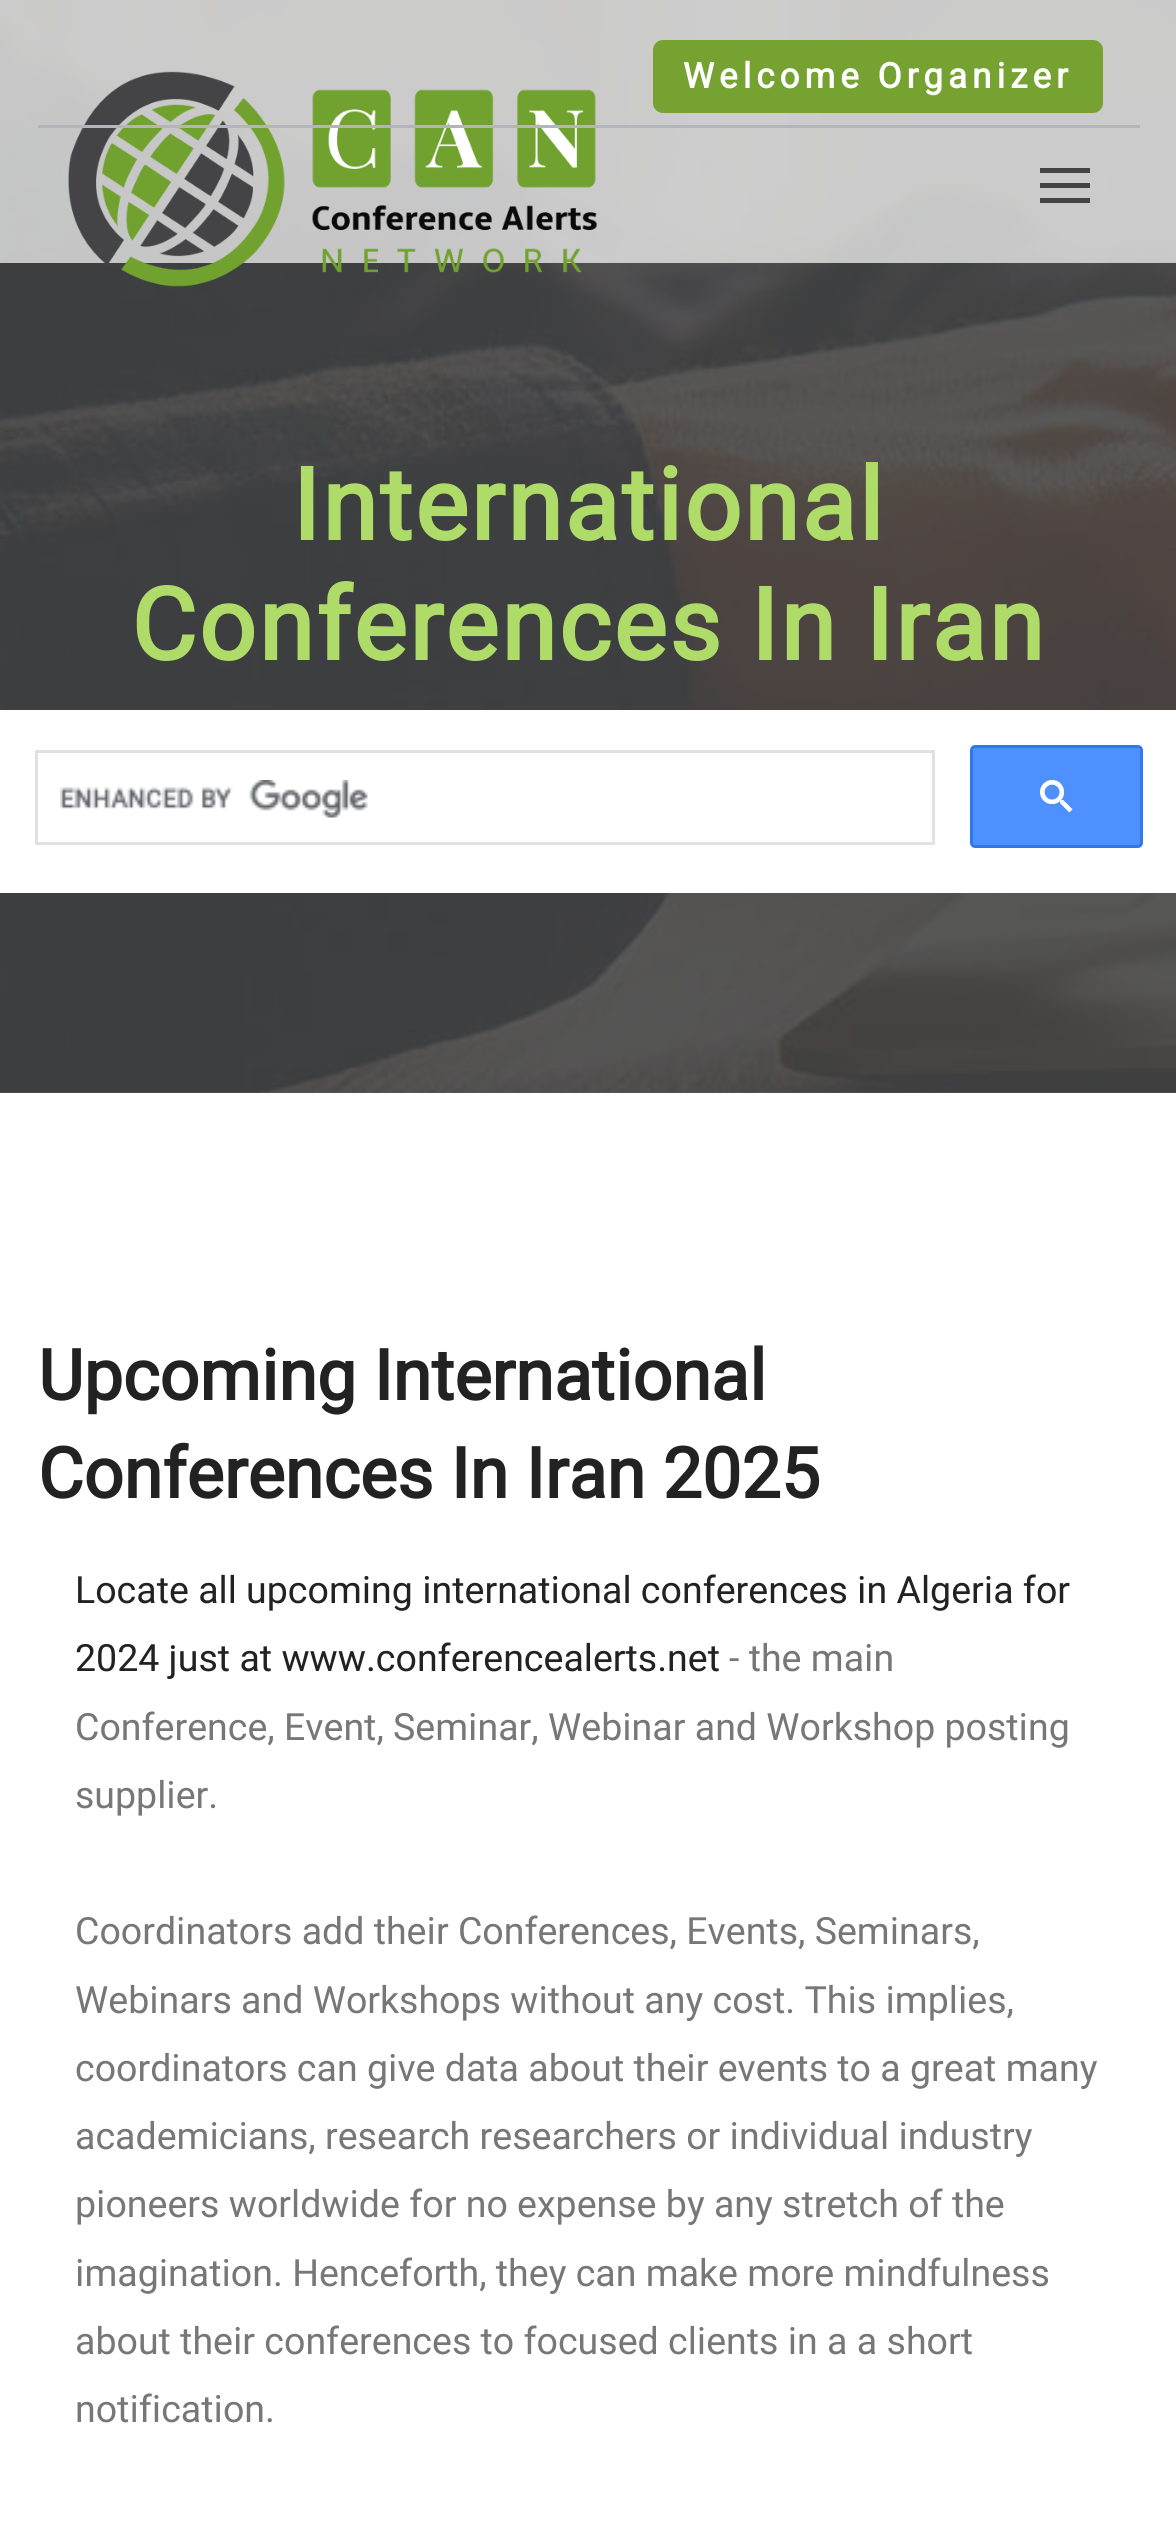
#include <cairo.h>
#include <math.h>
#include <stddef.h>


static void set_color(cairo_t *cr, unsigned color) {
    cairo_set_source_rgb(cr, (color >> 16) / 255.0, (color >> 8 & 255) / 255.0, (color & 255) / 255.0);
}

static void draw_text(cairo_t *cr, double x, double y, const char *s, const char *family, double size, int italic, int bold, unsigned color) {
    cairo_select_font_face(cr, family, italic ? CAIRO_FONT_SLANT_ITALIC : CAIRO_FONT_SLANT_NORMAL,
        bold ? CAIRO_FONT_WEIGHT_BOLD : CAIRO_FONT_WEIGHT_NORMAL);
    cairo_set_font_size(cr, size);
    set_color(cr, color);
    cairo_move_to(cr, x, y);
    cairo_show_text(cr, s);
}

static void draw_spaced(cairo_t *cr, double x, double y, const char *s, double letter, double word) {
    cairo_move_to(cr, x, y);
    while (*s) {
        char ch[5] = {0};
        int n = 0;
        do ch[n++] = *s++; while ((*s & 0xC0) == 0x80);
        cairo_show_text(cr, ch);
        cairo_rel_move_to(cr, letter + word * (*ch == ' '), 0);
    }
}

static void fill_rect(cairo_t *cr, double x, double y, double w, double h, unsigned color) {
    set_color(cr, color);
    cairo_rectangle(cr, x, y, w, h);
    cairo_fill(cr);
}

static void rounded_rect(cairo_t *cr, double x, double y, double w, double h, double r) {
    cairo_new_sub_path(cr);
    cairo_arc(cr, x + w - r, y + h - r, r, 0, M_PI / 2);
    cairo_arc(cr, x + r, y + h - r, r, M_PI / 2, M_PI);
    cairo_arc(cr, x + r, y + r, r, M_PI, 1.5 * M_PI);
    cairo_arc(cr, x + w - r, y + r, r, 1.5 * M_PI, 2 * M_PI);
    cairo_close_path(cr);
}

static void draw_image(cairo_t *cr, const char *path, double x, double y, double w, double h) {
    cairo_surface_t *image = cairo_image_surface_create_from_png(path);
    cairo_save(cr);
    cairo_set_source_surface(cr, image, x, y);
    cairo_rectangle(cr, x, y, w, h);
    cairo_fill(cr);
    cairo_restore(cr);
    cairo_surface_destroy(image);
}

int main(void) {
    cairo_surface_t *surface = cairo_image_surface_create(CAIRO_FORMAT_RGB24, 1176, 2525);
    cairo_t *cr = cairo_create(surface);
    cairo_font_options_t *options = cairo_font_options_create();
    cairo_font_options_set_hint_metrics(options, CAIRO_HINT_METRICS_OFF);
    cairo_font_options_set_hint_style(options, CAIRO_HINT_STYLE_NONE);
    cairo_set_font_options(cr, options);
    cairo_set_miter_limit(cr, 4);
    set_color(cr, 0xFFFFFF);
    cairo_paint(cr);
    fill_rect(cr, 0, 1092, 1176, 1, 0x595959);
    draw_image(cr, "assets/img2.png", 0, 0, 1176, 1093);
    cairo_set_source_rgba(cr, 1, 1, 1, 0.7);
    cairo_rectangle(cr, 0, 0, 1176, 263);
    cairo_fill(cr);
    draw_image(cr, "assets/img1.png", 68, 71, 530, 216);
    fill_rect(cr, 38, 125, 1102, 3, 0xB4B4BD);
    set_color(cr, 0x76A231);
    rounded_rect(cr, 653, 40, 450, 73, 10);
    cairo_fill(cr);
    cairo_select_font_face(cr, "Heebo", CAIRO_FONT_SLANT_NORMAL, CAIRO_FONT_WEIGHT_BOLD);
    cairo_set_font_size(cr, 35);
    set_color(cr, 0xFFFFFF);
    draw_spaced(cr, 683, 88, "Welcome Organizer", 5, 0);
    fill_rect(cr, 1040, 168, 50, 5, 0x444447);
    fill_rect(cr, 1040, 183, 50, 5, 0x444447);
    fill_rect(cr, 1040, 198, 50, 5, 0x444447);
    cairo_set_font_size(cr, 100);
    set_color(cr, 0xAFDC68);
    draw_spaced(cr, 292, 540, "International", 2.5, 0);
    draw_spaced(cr, 131, 660, "Conferences In Iran", 2.5, 0);
    fill_rect(cr, 0, 710, 1176, 183, 0xFFFFFF);
    cairo_rectangle(cr, 36.5, 751.5, 897, 92);
    set_color(cr, 0xDFE1E5);
    cairo_set_line_width(cr, 3);
    cairo_stroke(cr);
    draw_image(cr, "assets/img3.png", 60, 780, 308, 38);
    set_color(cr, 0x4D90FE);
    rounded_rect(cr, 971.5, 746.5, 170, 100, 3.5);
    cairo_fill_preserve(cr);
    set_color(cr, 0x3079ED);
    cairo_stroke(cr);
    draw_image(cr, "assets/img4.png", 1040, 780, 33, 33);
    draw_text(cr, 38, 1400, "Upcoming International", "Heebo", 70, 0, 1, 0x222222);
    draw_text(cr, 38, 1498, "Conferences In Iran 2025", "Heebo", 70, 0, 1, 0x222222);
    draw_text(cr, 75, 1603, "Locate all upcoming international conferences in Algeria for", "Heebo", 37.5, 0, 0, 0x222222);
    draw_text(cr, 75, 1671, "2024 just at www.conferencealerts.net", "Heebo", 37.5, 0, 0, 0x222222);
    draw_text(cr, 729, 1671, "- the main", "Heebo", 37.5, 0, 0, 0x777777);
    draw_text(cr, 75, 1740, "Conference, Event, Seminar, Webinar and Workshop posting", "Heebo", 37.5, 0, 0, 0x777777);
    draw_text(cr, 75, 1808, "supplier.", "Heebo", 37.5, 0, 0, 0x777777);
    draw_text(cr, 75, 1944, "Coordinators add their Conferences, Events, Seminars,", "Heebo", 37.5, 0, 0, 0x777777);
    draw_text(cr, 75, 2013, "Webinars and Workshops without any cost. This implies,", "Heebo", 37.5, 0, 0, 0x777777);
    draw_text(cr, 75, 2081, "coordinators can give data about their events to a great many", "Heebo", 37.5, 0, 0, 0x777777);
    draw_text(cr, 75, 2149, "academicians, research researchers or individual industry", "Heebo", 37.5, 0, 0, 0x777777);
    draw_text(cr, 75, 2217, "pioneers worldwide for no expense by any stretch of the", "Heebo", 37.5, 0, 0, 0x777777);
    draw_text(cr, 75, 2286, "imagination. Henceforth, they can make more mindfulness", "Heebo", 37.5, 0, 0, 0x777777);
    draw_text(cr, 75, 2354, "about their conferences to focused clients in a a short", "Heebo", 37.5, 0, 0, 0x777777);
    draw_text(cr, 75, 2422, "notification.", "Heebo", 37.5, 0, 0, 0x777777);
    cairo_surface_write_to_png(surface, "output.png");
    cairo_font_options_destroy(options);
    cairo_destroy(cr);
    cairo_surface_destroy(surface);
    return 0;
}
